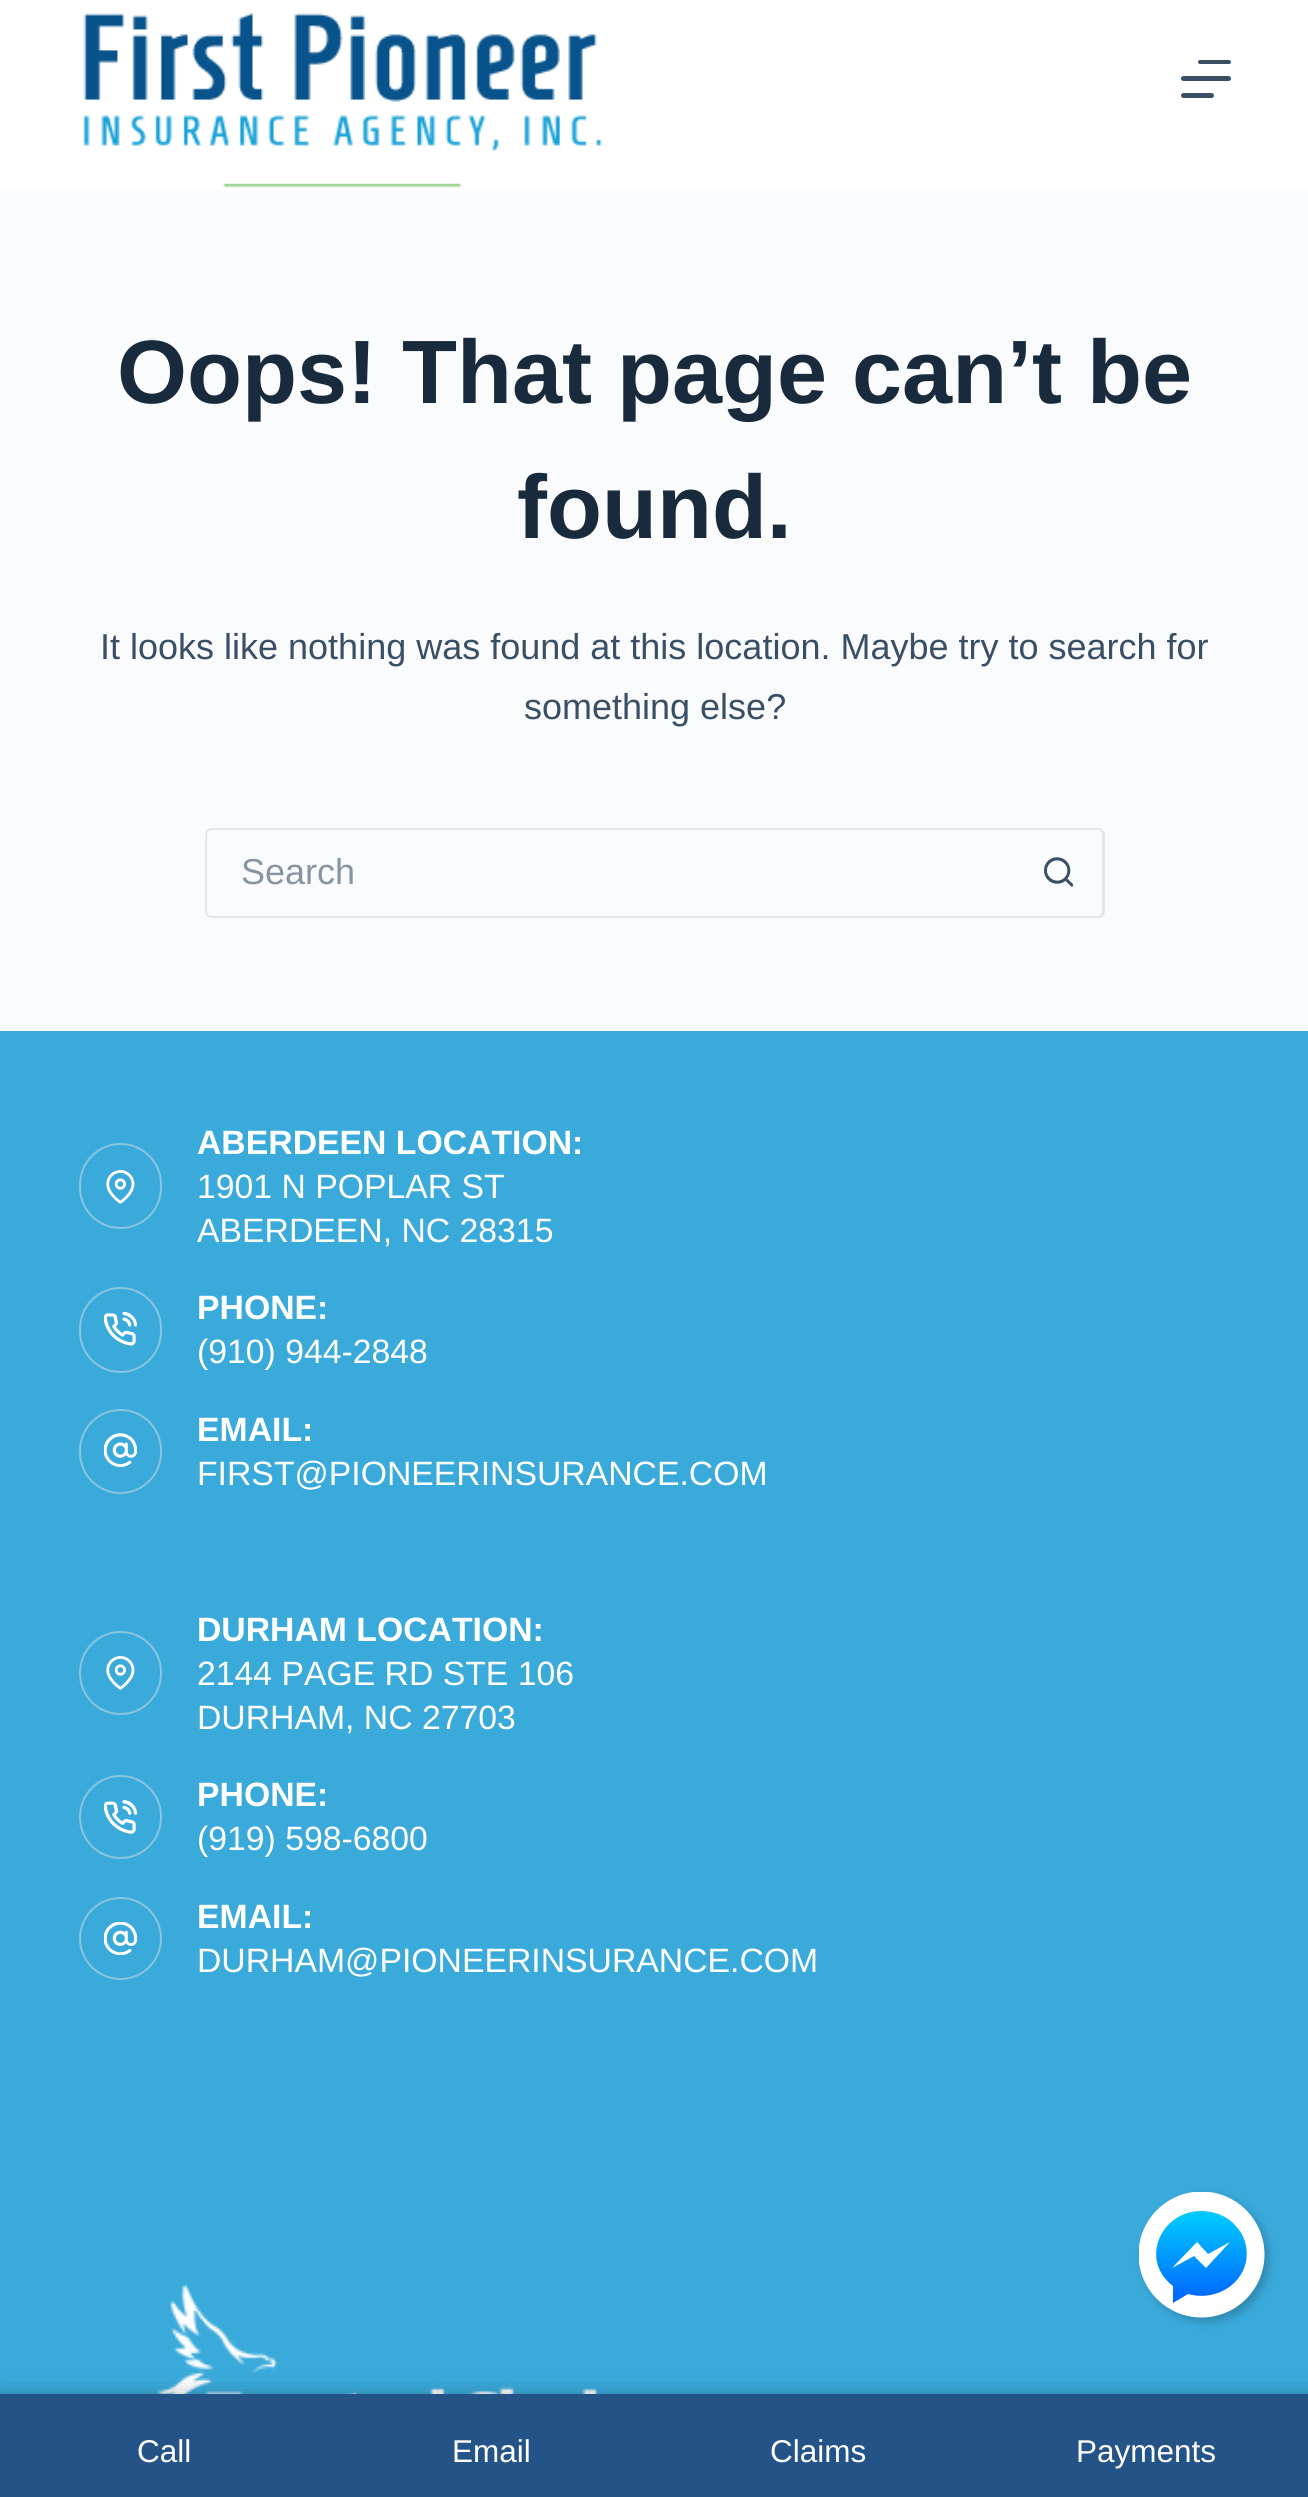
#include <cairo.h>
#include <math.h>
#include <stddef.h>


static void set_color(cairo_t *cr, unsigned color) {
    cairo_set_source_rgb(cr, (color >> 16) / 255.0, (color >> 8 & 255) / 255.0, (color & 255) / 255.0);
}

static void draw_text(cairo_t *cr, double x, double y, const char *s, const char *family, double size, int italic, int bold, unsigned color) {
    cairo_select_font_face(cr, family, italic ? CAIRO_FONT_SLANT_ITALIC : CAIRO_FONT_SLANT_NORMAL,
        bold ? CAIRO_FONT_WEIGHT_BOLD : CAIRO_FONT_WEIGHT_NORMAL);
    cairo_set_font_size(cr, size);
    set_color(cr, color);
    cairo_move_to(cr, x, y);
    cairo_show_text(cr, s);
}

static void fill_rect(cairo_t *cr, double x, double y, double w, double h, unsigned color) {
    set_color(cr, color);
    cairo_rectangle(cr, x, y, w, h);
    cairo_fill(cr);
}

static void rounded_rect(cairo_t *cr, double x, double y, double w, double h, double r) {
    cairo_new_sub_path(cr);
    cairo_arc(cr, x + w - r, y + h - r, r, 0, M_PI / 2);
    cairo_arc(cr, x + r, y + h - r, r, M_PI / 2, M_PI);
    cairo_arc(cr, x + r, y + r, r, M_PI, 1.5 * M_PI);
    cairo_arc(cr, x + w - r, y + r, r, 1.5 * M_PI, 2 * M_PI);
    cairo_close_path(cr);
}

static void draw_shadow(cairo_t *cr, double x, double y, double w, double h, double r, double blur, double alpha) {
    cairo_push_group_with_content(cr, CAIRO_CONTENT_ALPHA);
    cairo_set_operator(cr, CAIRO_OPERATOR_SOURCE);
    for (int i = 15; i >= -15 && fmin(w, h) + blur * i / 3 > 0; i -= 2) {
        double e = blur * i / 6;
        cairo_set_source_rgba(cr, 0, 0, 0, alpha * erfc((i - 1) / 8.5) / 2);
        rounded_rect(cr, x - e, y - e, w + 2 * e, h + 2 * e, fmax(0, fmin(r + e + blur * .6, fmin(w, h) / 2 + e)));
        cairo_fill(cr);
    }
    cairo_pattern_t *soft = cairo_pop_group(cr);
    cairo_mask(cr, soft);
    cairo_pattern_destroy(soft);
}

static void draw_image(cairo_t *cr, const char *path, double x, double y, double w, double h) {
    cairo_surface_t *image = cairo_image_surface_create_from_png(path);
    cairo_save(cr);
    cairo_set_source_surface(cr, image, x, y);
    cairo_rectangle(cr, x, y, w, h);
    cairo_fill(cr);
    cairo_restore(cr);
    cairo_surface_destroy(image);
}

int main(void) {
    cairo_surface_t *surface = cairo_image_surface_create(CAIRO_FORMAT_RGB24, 1308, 2497);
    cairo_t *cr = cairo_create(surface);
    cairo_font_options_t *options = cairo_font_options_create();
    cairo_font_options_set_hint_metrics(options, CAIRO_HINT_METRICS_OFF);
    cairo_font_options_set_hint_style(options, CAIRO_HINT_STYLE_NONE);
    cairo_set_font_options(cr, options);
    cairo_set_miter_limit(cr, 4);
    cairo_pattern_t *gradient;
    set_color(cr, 0xFAFBFC);
    cairo_paint(cr);
    fill_rect(cr, 0, 0, 1308, 191, 0xFFFFFF);
    draw_image(cr, "assets/img1.png", 83, 13, 520, 175);
    set_color(cr, 0x3A4F66);
    rounded_rect(cr, 1198, 60, 33, 4, 2);
    cairo_fill(cr);
    rounded_rect(cr, 1181, 76, 50, 5, 2.5);
    cairo_fill(cr);
    rounded_rect(cr, 1181, 93, 33, 5, 2.5);
    cairo_fill(cr);
    draw_text(cr, 117, 403, "Oops! That page can’t be", "Liberation Sans", 90, 0, 1, 0x192A3D);
    draw_text(cr, 517, 538, "found.", "Liberation Sans", 90, 0, 1, 0x192A3D);
    draw_text(cr, 100, 659, "It looks like nothing was found at this location. Maybe try to search for", "Liberation Sans", 36, 0, 0, 0x3A4F66);
    draw_text(cr, 524, 719, "something else?", "Liberation Sans", 36, 0, 0, 0x3A4F66);
    set_color(cr, 0xE1E8ED);
    cairo_set_fill_rule(cr, CAIRO_FILL_RULE_EVEN_ODD);
    cairo_new_path(cr);
    cairo_move_to(cr, 212, 828);
    cairo_line_to(cr, 1015, 828);
    cairo_line_to(cr, 1015, 918);
    cairo_line_to(cr, 212, 918);
    cairo_curve_to(cr, 208, 918, 205, 915, 205, 911);
    cairo_line_to(cr, 205, 835);
    cairo_curve_to(cr, 205, 831, 208, 828, 212, 828);
    cairo_close_path(cr);
    cairo_move_to(cr, 212, 830);
    cairo_line_to(cr, 1015, 830);
    cairo_line_to(cr, 1015, 916);
    cairo_line_to(cr, 212, 916);
    cairo_curve_to(cr, 209, 916, 207, 914, 207, 911);
    cairo_line_to(cr, 207, 835);
    cairo_curve_to(cr, 207, 832, 209, 830, 212, 830);
    cairo_close_path(cr);
    cairo_fill(cr);
    draw_text(cr, 241, 884, "Search", "Liberation Sans", 36, 0, 0, 0x8794A2);
    set_color(cr, 0xE1E8ED);
    cairo_new_path(cr);
    cairo_move_to(cr, 1015, 828);
    cairo_line_to(cr, 1098, 828);
    cairo_curve_to(cr, 1102, 828, 1105, 831, 1105, 835);
    cairo_line_to(cr, 1105, 911);
    cairo_curve_to(cr, 1105, 915, 1102, 918, 1098, 918);
    cairo_line_to(cr, 1015, 918);
    cairo_close_path(cr);
    cairo_move_to(cr, 1015, 830);
    cairo_line_to(cr, 1098, 830);
    cairo_curve_to(cr, 1100, 830, 1102, 832, 1102, 835);
    cairo_line_to(cr, 1102, 911);
    cairo_curve_to(cr, 1102, 914, 1100, 916, 1098, 916);
    cairo_line_to(cr, 1015, 916);
    cairo_close_path(cr);
    cairo_fill(cr);
    draw_image(cr, "assets/img2.png", 1044, 857, 29, 30);
    fill_rect(cr, 0, 1031, 1308, 1363, 0x3AAADB);
    rounded_rect(cr, 80, 1144, 81, 84, 40.5);
    set_color(cr, 0x8AC4E0);
    cairo_stroke(cr);
    draw_image(cr, "assets/img3.png", 106, 1170, 29, 34);
    draw_text(cr, 197, 1154, "ABERDEEN LOCATION:", "Liberation Sans", 33.75, 0, 1, 0xFFFFFF);
    draw_text(cr, 197, 1198, "1901 N POPLAR ST", "Liberation Sans", 33.75, 0, 0, 0xFFFFFF);
    draw_text(cr, 197, 1242, "ABERDEEN, NC 28315", "Liberation Sans", 33.75, 0, 0, 0xFFFFFF);
    rounded_rect(cr, 80, 1288, 81, 84, 40.5);
    set_color(cr, 0x8AC4E0);
    cairo_stroke(cr);
    draw_image(cr, "assets/img4.png", 104, 1312, 33, 34);
    draw_text(cr, 197, 1319, "PHONE:", "Liberation Sans", 33.75, 0, 1, 0xFFFFFF);
    draw_text(cr, 197, 1363, "(910) 944-2848", "Liberation Sans", 33.75, 0, 0, 0xFFFFFF);
    rounded_rect(cr, 80, 1410, 81, 83, 40.5);
    set_color(cr, 0x8AC4E0);
    cairo_stroke(cr);
    draw_image(cr, "assets/img5.png", 104, 1433, 33, 34);
    draw_text(cr, 197, 1441, "EMAIL:", "Liberation Sans", 33.75, 0, 1, 0xFFFFFF);
    draw_text(cr, 197, 1485, "FIRST@PIONEERINSURANCE.COM", "Liberation Sans", 33.75, 0, 0, 0xFFFFFF);
    rounded_rect(cr, 80, 1632, 81, 82, 40.5);
    set_color(cr, 0x8AC4E0);
    cairo_stroke(cr);
    draw_image(cr, "assets/img3.png", 106, 1656, 29, 34);
    draw_text(cr, 197, 1641, "DURHAM LOCATION:", "Liberation Sans", 33.75, 0, 1, 0xFFFFFF);
    draw_text(cr, 197, 1685, "2144 PAGE RD STE 106", "Liberation Sans", 33.75, 0, 0, 0xFFFFFF);
    draw_text(cr, 197, 1729, "DURHAM, NC 27703", "Liberation Sans", 33.75, 0, 0, 0xFFFFFF);
    rounded_rect(cr, 80, 1776, 81, 82, 40.5);
    set_color(cr, 0x8AC4E0);
    cairo_stroke(cr);
    draw_image(cr, "assets/img6.png", 104, 1800, 33, 34);
    draw_text(cr, 197, 1806, "PHONE:", "Liberation Sans", 33.75, 0, 1, 0xFFFFFF);
    draw_text(cr, 197, 1850, "(919) 598-6800", "Liberation Sans", 33.75, 0, 0, 0xFFFFFF);
    cairo_new_path(cr);
    cairo_arc(cr, 120.5, 1938.5, 40.5, 0, 2 * M_PI);
    set_color(cr, 0x8AC4E0);
    cairo_stroke(cr);
    draw_image(cr, "assets/img7.png", 104, 1922, 33, 33);
    draw_text(cr, 197, 1928, "EMAIL:", "Liberation Sans", 33.75, 0, 1, 0xFFFFFF);
    draw_text(cr, 197, 1972, "DURHAM@PIONEERINSURANCE.COM", "Liberation Sans", 33.75, 0, 0, 0xFFFFFF);
    draw_image(cr, "assets/img8.png", 157, 2285, 440, 109);
    set_color(cr, 0x000000);
    draw_shadow(cr, 0, 2394, 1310, 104, 0, 10, 0.25);
    fill_rect(cr, 0, 2394, 1308, 103, 0x235387);
    draw_text(cr, 137, 2462, "Call", "Liberation Sans", 31.5, 0, 0, 0xFFFFFF);
    draw_text(cr, 452, 2462, "Email", "Liberation Sans", 31.5, 0, 0, 0xFFFFFF);
    draw_text(cr, 770, 2462, "Claims", "Liberation Sans", 31.5, 0, 0, 0xFFFFFF);
    draw_text(cr, 1076, 2462, "Payments", "Liberation Sans", 31.5, 0, 0, 0xFFFFFF);
    set_color(cr, 0x000000);
    draw_shadow(cr, 1143, 2196, 126, 126, 63, 4.5, 0.2);
    cairo_save(cr);
    cairo_set_fill_rule(cr, CAIRO_FILL_RULE_WINDING);
    cairo_rectangle(cr, 1139, 2192, 126, 126);
    cairo_clip(cr);
    set_color(cr, 0xFFFFFF);
    cairo_arc(cr, 1201.5, 2254.5, 63, 0, 2 * M_PI);
    cairo_fill(cr);
    cairo_restore(cr);
    gradient = cairo_pattern_create_linear(1201, 2218, 1201, 2298);
    cairo_pattern_add_color_stop_rgba(gradient, 0, 0, 0.776, 1, 1);
    cairo_pattern_add_color_stop_rgba(gradient, 1, 0, 0.408, 1, 1);
    cairo_set_source(cr, gradient);
    cairo_pattern_destroy(gradient);
    cairo_set_fill_rule(cr, CAIRO_FILL_RULE_WINDING);
    cairo_new_path(cr);
    cairo_move_to(cr, 1173, 2286);
    cairo_line_to(cr, 1173, 2303);
    cairo_line_to(cr, 1188, 2294);
    cairo_curve_to(cr, 1212, 2301, 1240, 2288, 1246, 2262);
    cairo_curve_to(cr, 1248, 2251, 1246, 2239, 1239, 2230);
    cairo_curve_to(cr, 1232, 2220, 1222, 2214, 1211, 2212);
    cairo_curve_to(cr, 1165, 2203, 1136, 2258, 1173, 2286);
    cairo_close_path(cr);
    cairo_fill(cr);
    set_color(cr, 0xFFFFFF);
    cairo_new_path(cr);
    cairo_move_to(cr, 1197, 2242);
    cairo_line_to(cr, 1172, 2268);
    cairo_line_to(cr, 1194, 2256);
    cairo_line_to(cr, 1206, 2268);
    cairo_line_to(cr, 1230, 2242);
    cairo_line_to(cr, 1208, 2254);
    cairo_close_path(cr);
    cairo_fill(cr);
    cairo_surface_write_to_png(surface, "output.png");
    cairo_font_options_destroy(options);
    cairo_destroy(cr);
    cairo_surface_destroy(surface);
    return 0;
}
